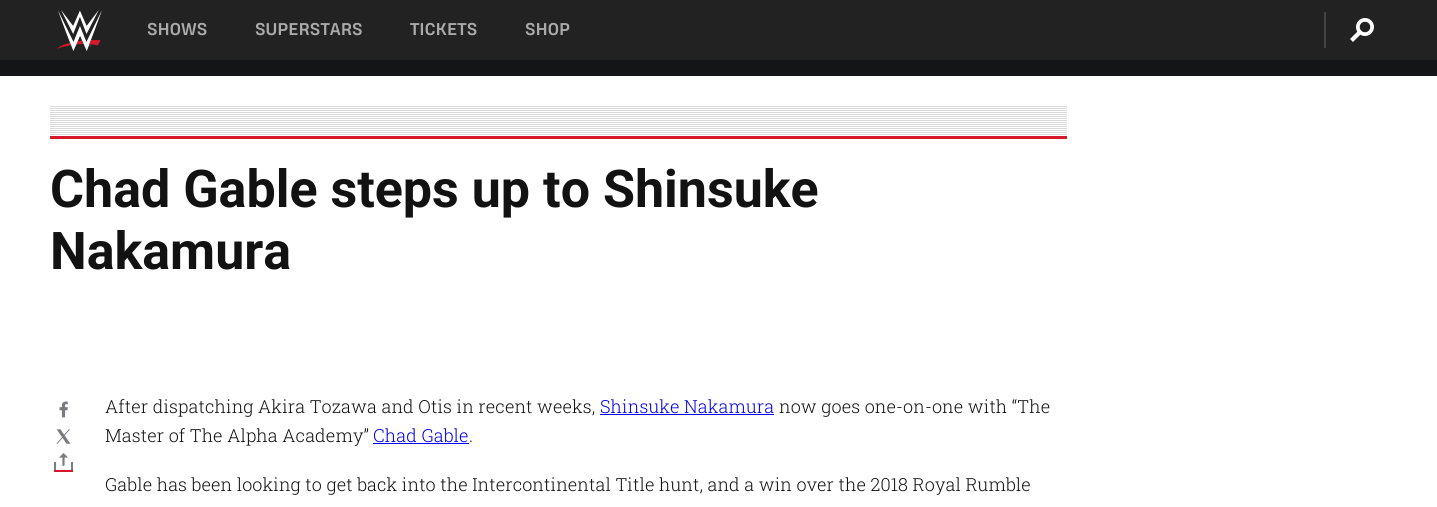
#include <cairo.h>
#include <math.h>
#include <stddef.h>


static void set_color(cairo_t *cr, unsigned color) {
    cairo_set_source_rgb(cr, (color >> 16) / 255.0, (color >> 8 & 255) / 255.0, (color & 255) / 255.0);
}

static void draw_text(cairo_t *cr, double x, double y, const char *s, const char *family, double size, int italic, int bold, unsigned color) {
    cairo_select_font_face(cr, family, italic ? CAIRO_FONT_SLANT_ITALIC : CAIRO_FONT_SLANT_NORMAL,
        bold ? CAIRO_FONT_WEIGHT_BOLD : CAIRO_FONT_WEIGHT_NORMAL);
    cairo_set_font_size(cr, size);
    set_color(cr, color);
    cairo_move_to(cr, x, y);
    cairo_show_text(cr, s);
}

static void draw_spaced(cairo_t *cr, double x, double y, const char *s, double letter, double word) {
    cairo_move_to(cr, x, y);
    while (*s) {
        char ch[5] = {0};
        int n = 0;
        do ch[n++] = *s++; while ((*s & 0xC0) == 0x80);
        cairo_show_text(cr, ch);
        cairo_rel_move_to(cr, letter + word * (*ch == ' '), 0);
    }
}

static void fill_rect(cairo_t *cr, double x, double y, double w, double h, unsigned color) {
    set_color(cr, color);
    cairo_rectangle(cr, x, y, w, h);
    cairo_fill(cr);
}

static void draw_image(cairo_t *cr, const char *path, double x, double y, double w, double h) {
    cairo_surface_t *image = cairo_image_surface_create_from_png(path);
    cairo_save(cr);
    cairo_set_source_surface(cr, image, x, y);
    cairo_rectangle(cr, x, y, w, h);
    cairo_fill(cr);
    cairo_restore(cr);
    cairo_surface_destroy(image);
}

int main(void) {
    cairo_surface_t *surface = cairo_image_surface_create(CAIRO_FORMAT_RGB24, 1437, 507);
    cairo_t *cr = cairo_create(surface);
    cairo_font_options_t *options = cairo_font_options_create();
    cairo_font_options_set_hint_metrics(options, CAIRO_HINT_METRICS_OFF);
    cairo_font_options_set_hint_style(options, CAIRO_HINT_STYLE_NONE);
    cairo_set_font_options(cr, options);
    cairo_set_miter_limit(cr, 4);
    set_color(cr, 0xFFFFFF);
    cairo_paint(cr);
    fill_rect(cr, 0, 0, 1437, 60, 0x222222);
    draw_image(cr, "assets/img1.png", 57, 10, 45, 41);
    draw_text(cr, 147, 35, "SHOWS", "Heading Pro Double", 16, 0, 1, 0xAAAAAA);
    draw_text(cr, 255, 35, "SUPERSTARS", "Heading Pro Double", 16, 0, 1, 0xAAAAAA);
    draw_text(cr, 410, 35, "TICKETS", "Heading Pro Double", 16, 0, 1, 0xAAAAAA);
    draw_text(cr, 525, 35, "SHOP", "Heading Pro Double", 16, 0, 1, 0xAAAAAA);
    fill_rect(cr, 1324, 12, 2, 36, 0x444444);
    draw_image(cr, "assets/img2.png", 1350, 18, 24, 24);
    fill_rect(cr, 0, 60, 1437, 16, 0x141516);
    draw_image(cr, "assets/img3.png", 50, 106, 1017, 30);
    fill_rect(cr, 50, 136, 1017, 3, 0xD7182A);
    draw_text(cr, 50, 207, "Chad Gable steps up to Shinsuke", "Roboto", 52, 0, 1, 0x121212);
    draw_text(cr, 50, 269, "Nakamura", "Roboto", 52, 0, 1, 0x121212);
    draw_image(cr, "assets/img4.png", 59, 401, 9, 17);
    draw_image(cr, "assets/img5.png", 56, 429, 15, 15);
    draw_image(cr, "assets/img6.png", 54, 453, 19, 19);
    cairo_select_font_face(cr, "Roboto Slab Light", CAIRO_FONT_SLANT_NORMAL, CAIRO_FONT_WEIGHT_NORMAL);
    cairo_set_font_size(cr, 18);
    draw_spaced(cr, 105, 413, "After dispatching Akira Tozawa and Otis in recent weeks,", 0.1, 0);
    set_color(cr, 0x0000EE);
    draw_spaced(cr, 600, 413, "Shinsuke Nakamura", 0.1, 0);
    fill_rect(cr, 600, 414, 174, 1, 0x0000EE);
    set_color(cr, 0x121212);
    draw_spaced(cr, 779, 413, "now goes one-on-one with “The", 0.1, 0);
    draw_spaced(cr, 105, 442, "Master of The Alpha Academy”", 0.1, 0);
    set_color(cr, 0x0000EE);
    draw_spaced(cr, 373, 442, "Chad Gable", 0.1, 0);
    fill_rect(cr, 373, 443, 96, 1, 0x0000EE);
    set_color(cr, 0x121212);
    draw_spaced(cr, 469, 442, ".", 0.1, 0);
    draw_spaced(cr, 105, 491, "Gable has been looking to get back into the Intercontinental Title hunt, and a win over the 2018 Royal Rumble", 0.1, 0);
    cairo_surface_write_to_png(surface, "output.png");
    cairo_font_options_destroy(options);
    cairo_destroy(cr);
    cairo_surface_destroy(surface);
    return 0;
}
